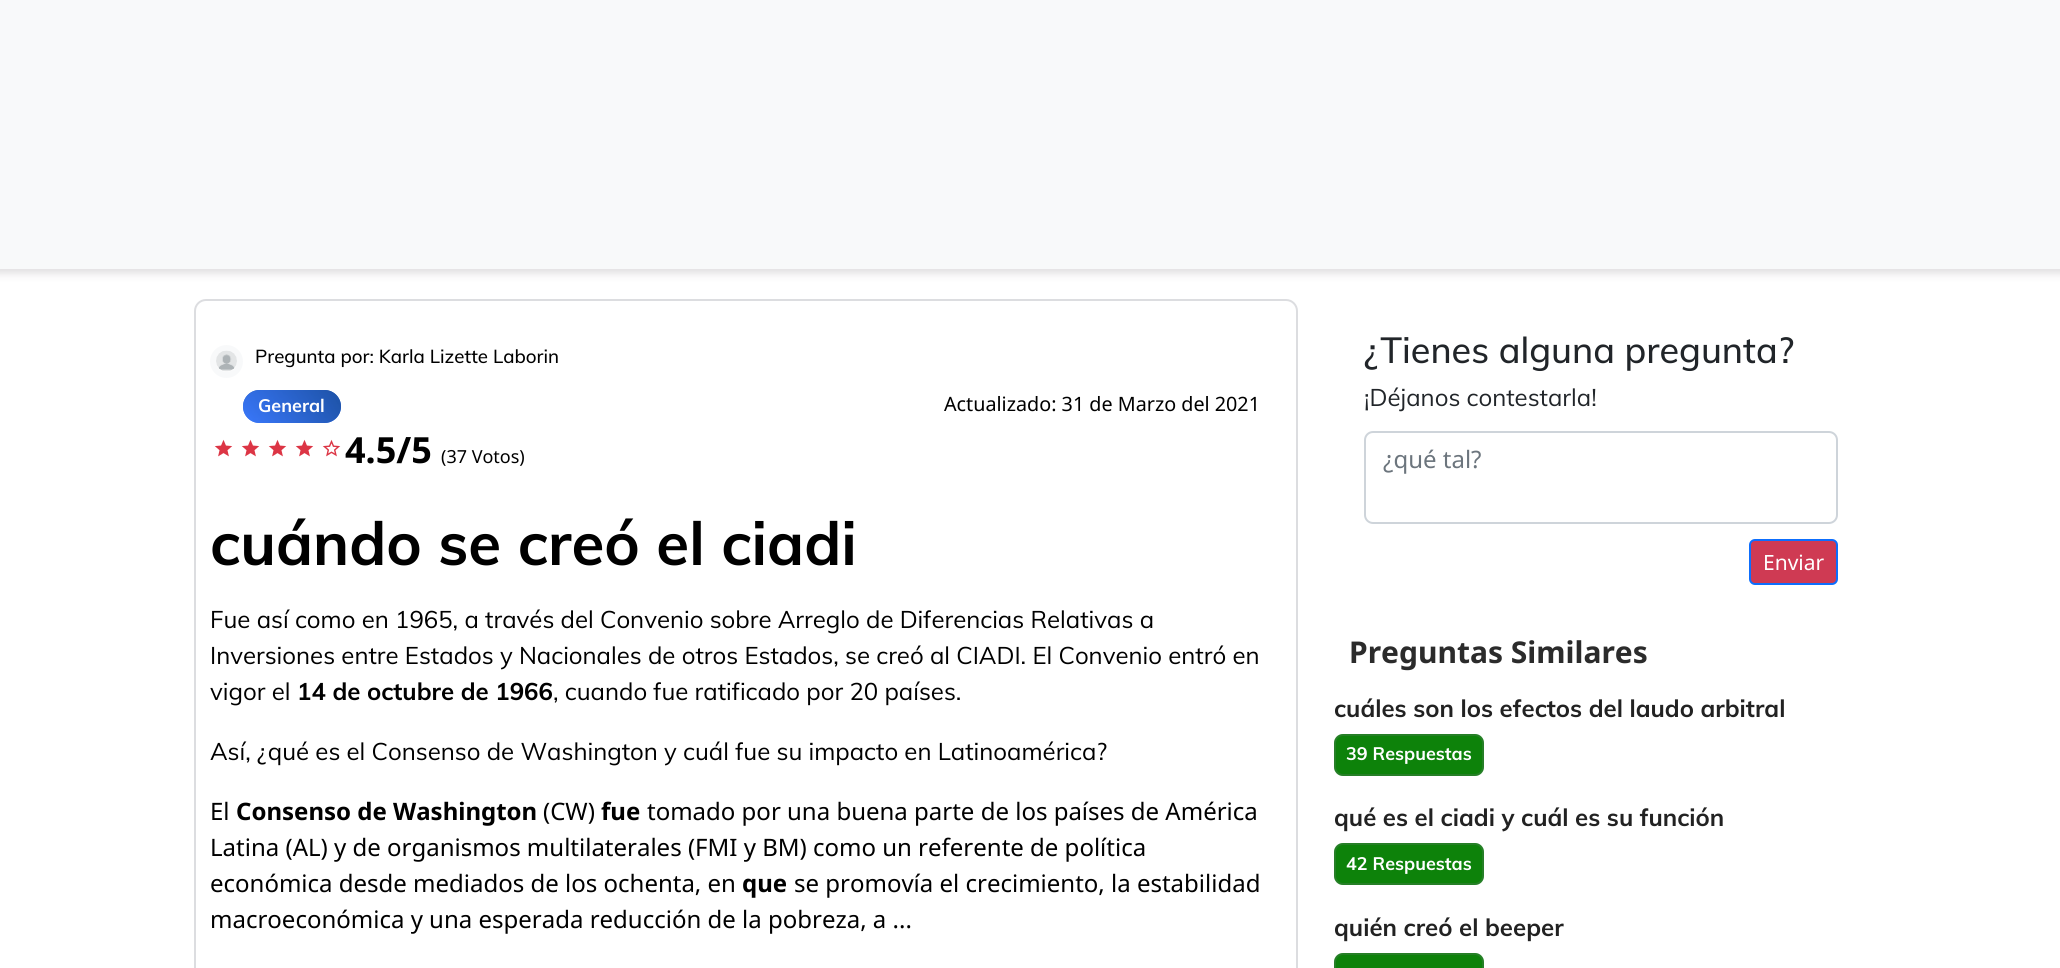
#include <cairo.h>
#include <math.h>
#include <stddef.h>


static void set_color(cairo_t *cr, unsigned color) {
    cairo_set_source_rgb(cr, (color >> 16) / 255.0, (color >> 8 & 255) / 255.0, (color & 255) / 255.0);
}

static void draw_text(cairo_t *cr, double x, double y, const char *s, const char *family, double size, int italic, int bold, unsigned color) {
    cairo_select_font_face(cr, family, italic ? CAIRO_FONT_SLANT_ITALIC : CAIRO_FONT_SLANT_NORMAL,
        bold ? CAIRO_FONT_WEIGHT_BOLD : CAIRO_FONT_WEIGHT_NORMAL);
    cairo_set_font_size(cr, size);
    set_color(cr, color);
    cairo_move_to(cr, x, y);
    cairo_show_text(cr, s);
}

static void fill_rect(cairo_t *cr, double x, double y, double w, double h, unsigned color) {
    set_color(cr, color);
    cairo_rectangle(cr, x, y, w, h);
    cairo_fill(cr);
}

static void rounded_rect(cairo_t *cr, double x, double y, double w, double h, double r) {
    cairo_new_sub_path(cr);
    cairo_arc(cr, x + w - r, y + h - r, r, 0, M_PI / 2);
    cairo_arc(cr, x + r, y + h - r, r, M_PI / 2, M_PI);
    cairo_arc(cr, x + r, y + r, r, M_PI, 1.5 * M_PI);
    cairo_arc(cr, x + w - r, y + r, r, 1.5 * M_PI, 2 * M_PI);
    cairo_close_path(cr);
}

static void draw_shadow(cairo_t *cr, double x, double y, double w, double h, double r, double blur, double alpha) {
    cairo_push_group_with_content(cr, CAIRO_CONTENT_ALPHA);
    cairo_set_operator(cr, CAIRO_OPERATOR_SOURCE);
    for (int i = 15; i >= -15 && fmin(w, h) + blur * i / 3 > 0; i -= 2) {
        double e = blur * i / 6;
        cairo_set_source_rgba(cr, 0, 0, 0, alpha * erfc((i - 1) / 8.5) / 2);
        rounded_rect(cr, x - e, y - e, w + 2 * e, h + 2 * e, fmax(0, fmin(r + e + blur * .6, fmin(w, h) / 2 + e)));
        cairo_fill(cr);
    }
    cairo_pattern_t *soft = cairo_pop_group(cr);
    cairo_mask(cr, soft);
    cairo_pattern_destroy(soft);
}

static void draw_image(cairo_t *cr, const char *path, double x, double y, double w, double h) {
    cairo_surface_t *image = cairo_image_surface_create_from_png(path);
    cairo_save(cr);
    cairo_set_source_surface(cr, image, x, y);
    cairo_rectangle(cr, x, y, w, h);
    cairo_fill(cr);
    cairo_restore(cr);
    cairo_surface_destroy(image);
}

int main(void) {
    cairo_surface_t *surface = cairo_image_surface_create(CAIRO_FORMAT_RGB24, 2060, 968);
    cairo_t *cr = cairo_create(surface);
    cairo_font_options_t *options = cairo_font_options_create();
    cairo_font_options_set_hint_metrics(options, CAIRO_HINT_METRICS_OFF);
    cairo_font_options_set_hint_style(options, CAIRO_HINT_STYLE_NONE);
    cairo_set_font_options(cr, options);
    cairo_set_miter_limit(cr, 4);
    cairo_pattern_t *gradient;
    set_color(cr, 0xFFFFFF);
    cairo_paint(cr);
    set_color(cr, 0xBDB9BD);
    draw_shadow(cr, -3, -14, 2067, 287, 0, 4.5, 0.5);
    fill_rect(cr, 0, 0, 2060, 269, 0xF8F9FA);
    rounded_rect(cr, 195, 300, 1102, 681, 11);
    set_color(cr, 0xDCDDE0);
    cairo_stroke(cr);
    cairo_arc(cr, 226.5, 361.5, 13.5, 0, 2 * M_PI);
    set_color(cr, 0xF8F9FA);
    cairo_set_line_width(cr, 6);
    cairo_stroke(cr);
    draw_image(cr, "assets/img1.png", 216, 350, 21, 22);
    draw_text(cr, 255, 363, "Pregunta por: Karla Lizette Laborin", "Muli Medium", 18.7, 0, 0, 0x000000);
    gradient = cairo_pattern_create_linear(291, 389, 292, 424);
    cairo_pattern_add_color_stop_rgba(gradient, 0, 0.114, 0.322, 0.651, 1);
    cairo_pattern_add_color_stop_rgba(gradient, 1, 0.227, 0.471, 0.988, 1);
    cairo_set_source(cr, gradient);
    cairo_pattern_destroy(gradient);
    rounded_rect(cr, 243, 390, 98, 33, 16.5);
    cairo_fill(cr);
    gradient = cairo_pattern_create_linear(335, 381, 248, 432);
    cairo_pattern_add_color_stop_rgba(gradient, 0, 0.114, 0.322, 0.651, 1);
    cairo_pattern_add_color_stop_rgba(gradient, 1, 0.227, 0.471, 0.988, 0.85);
    cairo_set_source(cr, gradient);
    cairo_pattern_destroy(gradient);
    rounded_rect(cr, 243, 390, 98, 33, 16.5);
    cairo_fill(cr);
    draw_text(cr, 258, 412, "General", "Muli", 18, 0, 1, 0xFFFFFF);
    draw_text(cr, 944, 411, "Actualizado: 31 de Marzo del 2021", "Noto Sans", 19.75, 0, 0, 0x000000);
    draw_image(cr, "assets/img2.png", 214, 439, 19, 18);
    draw_image(cr, "assets/img2.png", 241, 439, 19, 18);
    draw_image(cr, "assets/img2.png", 268, 439, 19, 18);
    draw_image(cr, "assets/img2.png", 295, 439, 19, 18);
    draw_image(cr, "assets/img3.png", 322, 439, 19, 18);
    draw_text(cr, 345, 463, "4.5/5", "Noto Sans", 36, 0, 1, 0x000000);
    draw_text(cr, 441, 463, "(37 Votos)", "Noto Sans", 18, 0, 0, 0x000000);
    draw_text(cr, 210, 565, "cuándo se creó el ciadi", "Muli", 60, 0, 1, 0x000000);
    draw_text(cr, 210, 628, "Fue así como en 1965, a través del Convenio sobre Arreglo de Diferencias Relativas a", "Muli", 24, 0, 0, 0x000000);
    draw_text(cr, 210, 664, "Inversiones entre Estados y Nacionales de otros Estados, se creó al CIADI. El Convenio entró en", "Muli", 24, 0, 0, 0x000000);
    draw_text(cr, 210, 700, "vigor el", "Muli", 24, 0, 0, 0x000000);
    draw_text(cr, 297, 700, "14 de octubre de 1966", "Muli", 24, 0, 1, 0x000000);
    draw_text(cr, 553, 700, ", cuando fue ratificado por 20 países.", "Muli", 24, 0, 0, 0x000000);
    draw_text(cr, 210, 760, "Así, ¿qué es el Consenso de Washington y cuál fue su impacto en Latinoamérica?", "Muli", 24, 0, 0, 0x000000);
    draw_text(cr, 210, 820, "El", "Noto Sans", 24, 0, 0, 0x000000);
    draw_text(cr, 236, 820, "Consenso de Washington", "Noto Sans", 24, 0, 1, 0x000000);
    draw_text(cr, 543, 820, "(CW)", "Noto Sans", 24, 0, 0, 0x000000);
    draw_text(cr, 601, 820, "fue", "Noto Sans", 24, 0, 1, 0x000000);
    draw_text(cr, 647, 820, "tomado por una buena parte de los países de América", "Noto Sans", 24, 0, 0, 0x000000);
    draw_text(cr, 210, 856, "Latina (AL) y de organismos multilaterales (FMI y BM) como un referente de política", "Noto Sans", 24, 0, 0, 0x000000);
    draw_text(cr, 210, 892, "económica desde mediados de los ochenta, en", "Noto Sans", 24, 0, 0, 0x000000);
    draw_text(cr, 742, 892, "que", "Noto Sans", 24, 0, 1, 0x000000);
    draw_text(cr, 794, 892, "se promovía el crecimiento, la estabilidad", "Noto Sans", 24, 0, 0, 0x000000);
    draw_text(cr, 210, 928, "macroeconómica y una esperada reducción de la pobreza, a ...", "Noto Sans", 24, 0, 0, 0x000000);
    draw_text(cr, 1364, 363, "¿Tienes alguna pregunta?", "Muli Medium", 36, 0, 0, 0x212529);
    draw_text(cr, 1364, 406, "¡Déjanos contestarla!", "Muli", 24, 0, 0, 0x212529);
    rounded_rect(cr, 1365, 432, 472, 91, 8);
    set_color(cr, 0xCED4DA);
    cairo_set_line_width(cr, 2);
    cairo_stroke(cr);
    draw_text(cr, 1383, 468, "¿qué tal?", "Noto Sans", 24, 0, 0, 0x6C757D);
    set_color(cr, 0xCF3A53);
    rounded_rect(cr, 1750, 540, 87, 44, 5);
    cairo_fill_preserve(cr);
    set_color(cr, 0x0D6EFD);
    cairo_stroke(cr);
    draw_text(cr, 1763, 570, "Enviar", "Noto Sans", 21, 0, 0, 0xFFFFFF);
    draw_text(cr, 1349, 663, "Preguntas Similares", "Noto Sans", 30, 0, 1, 0x2B2B2B);
    draw_text(cr, 1334, 717, "cuáles son los efectos del laudo arbitral", "Muli", 24, 0, 1, 0x222222);
    set_color(cr, 0x0D820A);
    rounded_rect(cr, 1334, 734, 150, 42, 9);
    cairo_fill(cr);
    rounded_rect(cr, 1335, 735, 148, 40, 8);
    cairo_set_source_rgba(cr, 0.443, 0.471, 0.51, 0.25);
    cairo_stroke(cr);
    draw_text(cr, 1346, 760, "39 Respuestas", "Muli", 18, 0, 1, 0xFFFFFF);
    draw_text(cr, 1334, 826, "qué es el ciadi y cuál es su función", "Muli", 24, 0, 1, 0x222222);
    set_color(cr, 0x0D820A);
    rounded_rect(cr, 1334, 843, 150, 42, 9);
    cairo_fill(cr);
    rounded_rect(cr, 1335, 844, 148, 40, 8);
    cairo_set_source_rgba(cr, 0.443, 0.471, 0.51, 0.25);
    cairo_stroke(cr);
    draw_text(cr, 1346, 870, "42 Respuestas", "Muli", 18, 0, 1, 0xFFFFFF);
    draw_text(cr, 1334, 936, "quién creó el beeper", "Muli", 24, 0, 1, 0x222222);
    set_color(cr, 0x0D820A);
    rounded_rect(cr, 1334, 953, 150, 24, 9);
    cairo_fill(cr);
    rounded_rect(cr, 1335, 954, 148, 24, 8);
    cairo_set_source_rgba(cr, 0.443, 0.471, 0.51, 0.25);
    cairo_stroke(cr);
    cairo_surface_write_to_png(surface, "output.png");
    cairo_font_options_destroy(options);
    cairo_destroy(cr);
    cairo_surface_destroy(surface);
    return 0;
}
